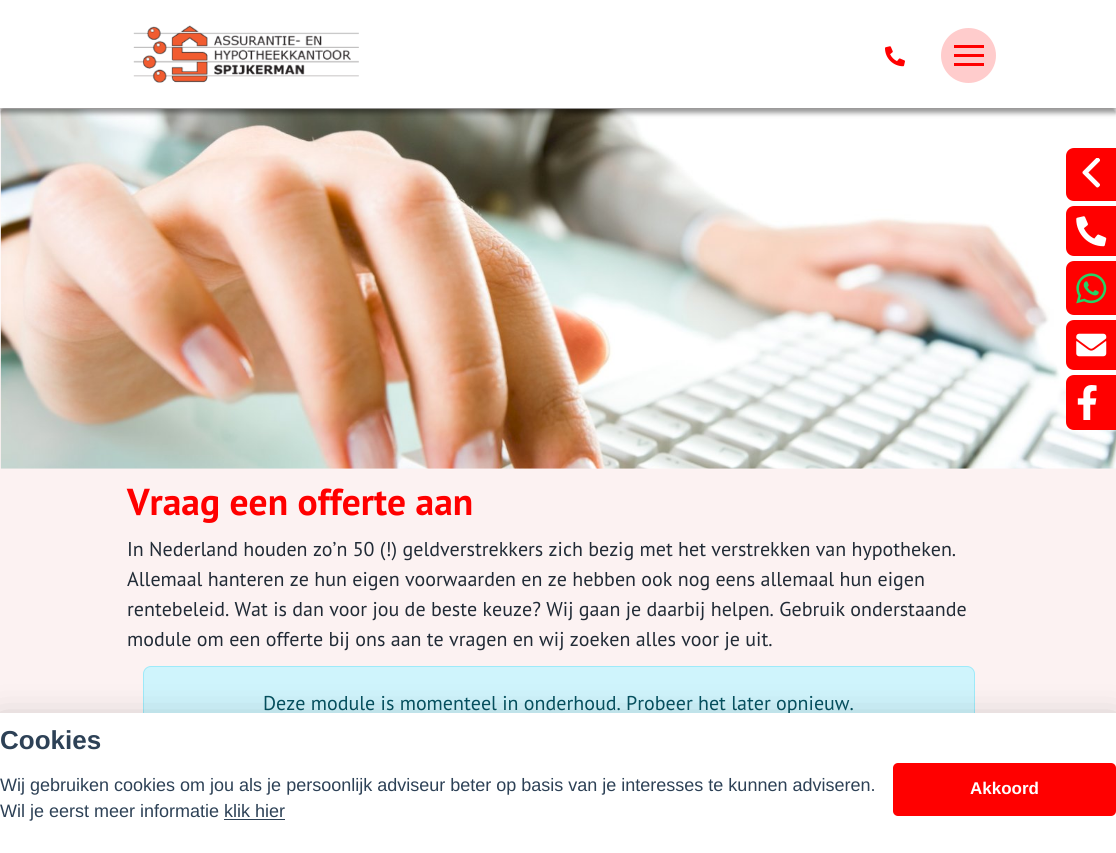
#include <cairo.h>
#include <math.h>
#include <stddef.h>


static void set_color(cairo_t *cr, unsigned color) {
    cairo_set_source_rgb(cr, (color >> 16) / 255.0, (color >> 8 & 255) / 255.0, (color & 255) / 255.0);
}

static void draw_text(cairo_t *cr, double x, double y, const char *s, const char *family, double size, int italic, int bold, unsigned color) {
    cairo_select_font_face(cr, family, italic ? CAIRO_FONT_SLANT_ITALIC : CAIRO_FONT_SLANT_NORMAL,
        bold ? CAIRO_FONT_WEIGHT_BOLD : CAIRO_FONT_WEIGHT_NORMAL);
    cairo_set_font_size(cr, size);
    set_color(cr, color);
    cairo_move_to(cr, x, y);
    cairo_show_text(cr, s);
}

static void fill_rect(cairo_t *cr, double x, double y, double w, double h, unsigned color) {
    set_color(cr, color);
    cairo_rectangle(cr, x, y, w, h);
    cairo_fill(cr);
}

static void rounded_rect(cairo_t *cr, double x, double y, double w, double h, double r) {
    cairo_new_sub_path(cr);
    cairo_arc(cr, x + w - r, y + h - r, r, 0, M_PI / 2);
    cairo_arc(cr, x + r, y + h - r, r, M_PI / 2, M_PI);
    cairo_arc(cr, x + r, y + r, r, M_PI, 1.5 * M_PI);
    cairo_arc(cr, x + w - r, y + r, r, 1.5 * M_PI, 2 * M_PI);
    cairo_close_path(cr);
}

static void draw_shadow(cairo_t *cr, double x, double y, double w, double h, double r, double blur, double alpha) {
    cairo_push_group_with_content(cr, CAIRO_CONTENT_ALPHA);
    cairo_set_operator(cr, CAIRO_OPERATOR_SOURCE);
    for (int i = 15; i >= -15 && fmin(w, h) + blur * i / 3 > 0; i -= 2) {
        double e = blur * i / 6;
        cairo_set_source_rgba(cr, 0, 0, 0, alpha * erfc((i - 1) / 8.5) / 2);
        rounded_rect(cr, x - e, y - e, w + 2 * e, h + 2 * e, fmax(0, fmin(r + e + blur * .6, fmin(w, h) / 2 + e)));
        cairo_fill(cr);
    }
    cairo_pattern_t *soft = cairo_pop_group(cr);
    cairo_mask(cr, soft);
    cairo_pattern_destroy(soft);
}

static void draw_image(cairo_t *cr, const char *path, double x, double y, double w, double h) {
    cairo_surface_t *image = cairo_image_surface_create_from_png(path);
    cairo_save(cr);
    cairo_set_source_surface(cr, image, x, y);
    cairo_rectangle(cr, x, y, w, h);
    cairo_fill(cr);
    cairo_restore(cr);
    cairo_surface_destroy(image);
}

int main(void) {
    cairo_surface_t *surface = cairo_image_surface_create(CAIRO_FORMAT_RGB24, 1116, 853);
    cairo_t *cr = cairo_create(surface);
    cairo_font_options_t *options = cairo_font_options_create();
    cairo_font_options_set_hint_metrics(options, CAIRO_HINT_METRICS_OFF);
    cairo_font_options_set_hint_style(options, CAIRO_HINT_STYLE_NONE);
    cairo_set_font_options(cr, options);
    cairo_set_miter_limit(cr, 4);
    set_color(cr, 0xFCF2F2);
    cairo_paint(cr);
    set_color(cr, 0xFEFAFA);
    cairo_set_fill_rule(cr, CAIRO_FILL_RULE_EVEN_ODD);
    cairo_new_path(cr);
    cairo_move_to(cr, -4, 80);
    cairo_line_to(cr, 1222, 80);
    cairo_curve_to(cr, 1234, 160, 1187, 210, 1083, 229);
    cairo_curve_to(cr, 975, 249, 801, 244, 598, 250);
    cairo_curve_to(cr, 356, 258, 155, 295, -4, 360);
    cairo_close_path(cr);
    cairo_fill(cr);
    draw_image(cr, "assets/img8.png", 0, 108, 1116, 361);
    set_color(cr, 0x000000);
    draw_shadow(cr, 0, 5, 1116, 108, 0, 2.5, 0.4);
    fill_rect(cr, 0, 0, 1116, 108, 0xFFFFFF);
    draw_image(cr, "assets/img1.png", 133, 25, 226, 58);
    draw_image(cr, "assets/img2.png", 885, 46, 20, 21);
    set_color(cr, 0xFFCCCC);
    cairo_arc(cr, 968.5, 55.5, 27.5, 0, 2 * M_PI);
    cairo_fill(cr);
    fill_rect(cr, 954, 45, 30, 3, 0xFF0000);
    fill_rect(cr, 954, 54, 30, 3, 0xFF0000);
    fill_rect(cr, 954, 63, 30, 3, 0xFF0000);
    cairo_new_path(cr);
    cairo_move_to(cr, 1074, 148);
    cairo_line_to(cr, 1116, 148);
    cairo_line_to(cr, 1116, 201);
    cairo_line_to(cr, 1074, 201);
    cairo_curve_to(cr, 1069.5, 201, 1066, 197.5, 1066, 193);
    cairo_line_to(cr, 1066, 156);
    cairo_curve_to(cr, 1066, 151.5, 1069.5, 148, 1074, 148);
    cairo_close_path(cr);
    cairo_fill(cr);
    draw_image(cr, "assets/img3.png", 1082, 158, 18, 30);
    cairo_new_path(cr);
    cairo_move_to(cr, 1074, 206);
    cairo_line_to(cr, 1116, 206);
    cairo_line_to(cr, 1116, 256);
    cairo_line_to(cr, 1074, 256);
    cairo_curve_to(cr, 1069.5, 256, 1066, 252.5, 1066, 248);
    cairo_line_to(cr, 1066, 214);
    cairo_curve_to(cr, 1066, 209.5, 1069.5, 206, 1074, 206);
    cairo_close_path(cr);
    cairo_fill(cr);
    draw_image(cr, "assets/img4.png", 1076, 216, 31, 31);
    cairo_new_path(cr);
    cairo_move_to(cr, 1074, 261);
    cairo_line_to(cr, 1116, 261);
    cairo_line_to(cr, 1116, 315);
    cairo_line_to(cr, 1074, 315);
    cairo_curve_to(cr, 1069.5, 315, 1066, 311.5, 1066, 307);
    cairo_line_to(cr, 1066, 269);
    cairo_curve_to(cr, 1066, 264.5, 1069.5, 261, 1074, 261);
    cairo_close_path(cr);
    cairo_fill(cr);
    draw_image(cr, "assets/img5.png", 1076, 273, 31, 31);
    cairo_new_path(cr);
    cairo_move_to(cr, 1074, 320);
    cairo_line_to(cr, 1116, 320);
    cairo_line_to(cr, 1116, 370);
    cairo_line_to(cr, 1074, 370);
    cairo_curve_to(cr, 1069.5, 370, 1066, 366.5, 1066, 362);
    cairo_line_to(cr, 1066, 328);
    cairo_curve_to(cr, 1066, 323.5, 1069.5, 320, 1074, 320);
    cairo_close_path(cr);
    cairo_fill(cr);
    draw_image(cr, "assets/img6.png", 1076, 333, 31, 24);
    cairo_new_path(cr);
    cairo_move_to(cr, 1074, 375);
    cairo_line_to(cr, 1116, 375);
    cairo_line_to(cr, 1116, 430);
    cairo_line_to(cr, 1074, 430);
    cairo_curve_to(cr, 1069.5, 430, 1066, 426.5, 1066, 422);
    cairo_line_to(cr, 1066, 383);
    cairo_curve_to(cr, 1066, 378.5, 1069.5, 375, 1074, 375);
    cairo_close_path(cr);
    cairo_fill(cr);
    draw_image(cr, "assets/img7.png", 1077, 385, 20, 35);
    draw_text(cr, 127, 515, "Vraag een offerte aan", "PT Sans", 37.5, 0, 1, 0xFF0000);
    draw_text(cr, 127, 556, "In Nederland houden zo’n 50 (!) geldverstrekkers zich bezig met het verstrekken van hypotheken.", "PT Sans", 20, 0, 0, 0x212B36);
    draw_text(cr, 127, 586, "Allemaal hanteren ze hun eigen voorwaarden en ze hebben ook nog eens allemaal hun eigen", "PT Sans", 20, 0, 0, 0x212B36);
    draw_text(cr, 127, 616, "rentebeleid. Wat is dan voor jou de beste keuze? Wij gaan je daarbij helpen. Gebruik onderstaande", "PT Sans", 20, 0, 0, 0x212B36);
    draw_text(cr, 127, 646, "module om een offerte bij ons aan te vragen en wij zoeken alles voor je uit.", "PT Sans", 20, 0, 0, 0x212B36);
    set_color(cr, 0xCFF4FC);
    rounded_rect(cr, 143.5, 666.5, 831, 72, 7.5);
    cairo_fill_preserve(cr);
    set_color(cr, 0x9EEAF9);
    cairo_set_line_width(cr, 1);
    cairo_stroke(cr);
    draw_text(cr, 263, 710, "Deze module is momenteel in onderhoud. Probeer het later opnieuw.", "PT Sans", 20, 0, 0, 0x055160);
    set_color(cr, 0x020203);
    draw_shadow(cr, 0, 725, 1116, 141, 0, 19, 0.28);
    fill_rect(cr, 0, 713, 1116, 140, 0xFFFFFF);
    draw_text(cr, 0, 749, "Cookies", "Liberation Sans", 26, 0, 1, 0x2D4156);
    draw_text(cr, 0, 791, "Wij gebruiken cookies om jou als je persoonlijk adviseur beter op basis van je interesses te kunnen adviseren.", "Liberation Sans", 18, 0, 0, 0x2D4156);
    draw_text(cr, 0, 817, "Wil je eerst meer informatie klik hier", "Liberation Sans", 18, 0, 0, 0x2D4156);
    fill_rect(cr, 224, 819, 61, 1, 0x2D4156);
    set_color(cr, 0xFF0000);
    rounded_rect(cr, 893, 763, 223, 53, 5);
    cairo_fill(cr);
    draw_text(cr, 970, 794, "Akkoord", "Liberation Sans", 17, 0, 1, 0xFFFFFF);
    cairo_surface_write_to_png(surface, "output.png");
    cairo_font_options_destroy(options);
    cairo_destroy(cr);
    cairo_surface_destroy(surface);
    return 0;
}
